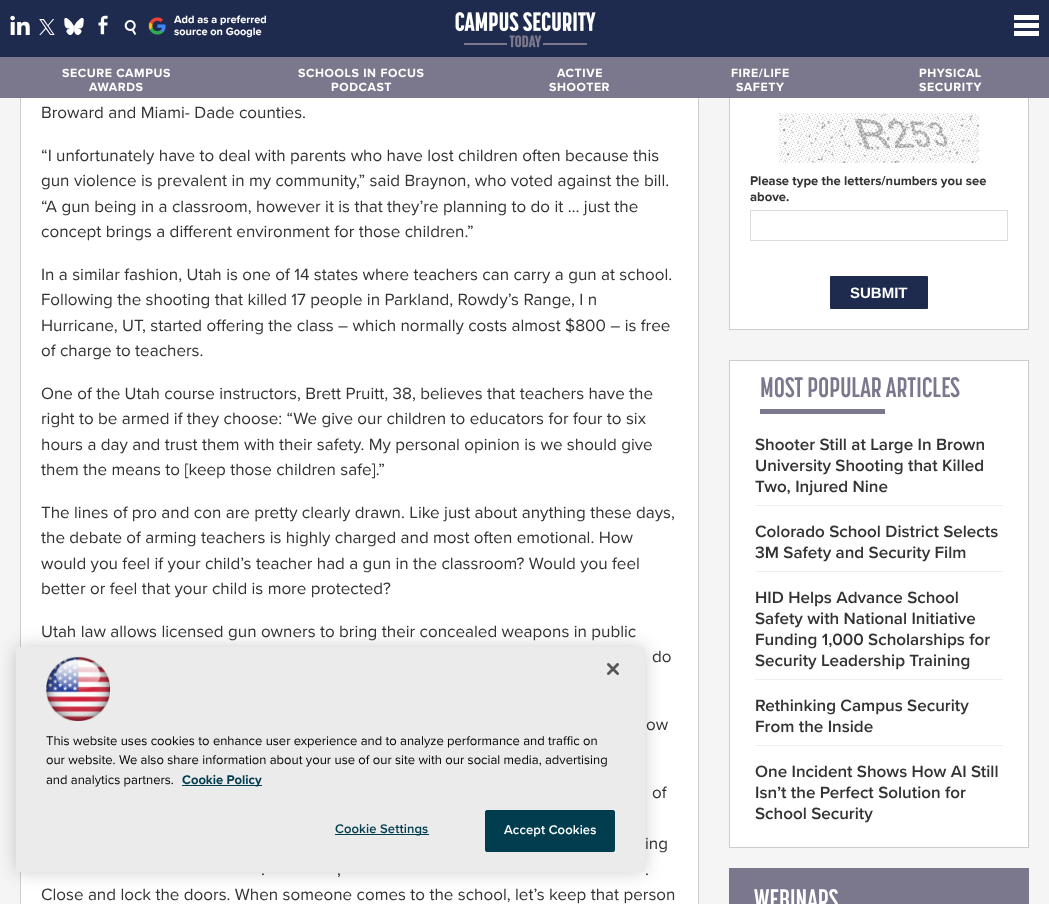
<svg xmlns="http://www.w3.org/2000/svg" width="1049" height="904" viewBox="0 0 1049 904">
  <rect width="100%" height="100%" fill="rgb(245,245,245)"/>
  <rect x="21" y="98" width="677" height="806" fill="rgb(255,255,255)"/>
  <rect x="20.5" y="-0.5" width="678" height="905" fill="none" stroke="rgb(204,204,204)"/>
  <rect x="730" y="98" width="298" height="231" fill="rgb(255,255,255)"/>
  <rect x="729.5" y="-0.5" width="299" height="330" fill="none" stroke="rgb(204,204,204)"/>
  <rect x="0" y="0" width="1049" height="57" fill="rgb(31,43,78)"/>
  <image x="10" y="15" width="20" height="20" href="pic1.png"/>
  <image x="39" y="19" width="16" height="16" href="pic2.png"/>
  <image x="64" y="18" width="20" height="17" href="pic3.png"/>
  <image x="98" y="15" width="10" height="20" href="pic4.png"/>
  <image x="124" y="20" width="13" height="15" href="pic5.png"/>
  <image x="148" y="17" width="18" height="18" href="pic6.png"/>
  <g font-family="Proxima Nova" font-size="11" font-weight="bold" fill="rgb(255,255,255)">
    <text>
      <tspan x="174" y="23">Add as a preferred</tspan>
      <tspan x="174" y="35">source on Google</tspan>
    </text>
  </g>
  <image x="455" y="12" width="141" height="36" href="pic7.png"/>
  <image x="1014" y="15" width="25" height="21" href="pic8.png"/>
  <rect x="0" y="57" width="1049" height="41" fill="rgb(123,119,141)"/>
  <g font-family="Proxima Nova" font-size="12.25" font-weight="bold" letter-spacing="0.6" fill="rgb(255,255,255)">
    <text x="62" y="77">SECURE CAMPUS</text>
    <text x="89" y="91">AWARDS</text>
    <text x="298" y="77">SCHOOLS IN FOCUS</text>
    <text x="331" y="91">PODCAST</text>
    <text x="557" y="77">ACTIVE</text>
    <text x="549" y="91">SHOOTER</text>
    <text x="731" y="77">FIRE/LIFE</text>
    <text x="736" y="91">SAFETY</text>
    <text>
      <tspan x="919" y="77">PHYSICAL</tspan>
      <tspan x="919" y="91">SECURITY</tspan>
    </text>
  </g>
  <g font-family="Proxima Nova" font-size="17" fill="rgb(51,51,51)">
    <text x="41" y="118">Broward and Miami- Dade counties.</text>
    <text>
      <tspan x="41" y="161">“I unfortunately have to deal with parents who have lost children often because this</tspan>
      <tspan x="41" y="186">gun violence is prevalent in my community,” said Braynon, who voted against the bill.</tspan>
      <tspan x="41" y="212">“A gun being in a classroom, however it is that they’re planning to do it … just the</tspan>
      <tspan x="41" y="237">concept brings a different environment for those children.”</tspan>
    </text>
    <text>
      <tspan x="41" y="280">In a similar fashion, Utah is one of 14 states where teachers can carry a gun at school.</tspan>
      <tspan x="41" y="305">Following the shooting that killed 17 people in Parkland, Rowdy’s Range, I n</tspan>
      <tspan x="41" y="331">Hurricane, UT, started offering the class – which normally costs almost $800 – is free</tspan>
      <tspan x="41" y="356">of charge to teachers.</tspan>
    </text>
    <text>
      <tspan x="41" y="399">One of the Utah course instructors, Brett Pruitt, 38, believes that teachers have the</tspan>
      <tspan x="41" y="424">right to be armed if they choose: “We give our children to educators for four to six</tspan>
      <tspan x="41" y="450">hours a day and trust them with their safety. My personal opinion is we should give</tspan>
      <tspan x="41" y="475">them the means to [keep those children safe].”</tspan>
    </text>
    <text>
      <tspan x="41" y="518">The lines of pro and con are pretty clearly drawn. Like just about anything these days,</tspan>
      <tspan x="41" y="543">the debate of arming teachers is highly charged and most often emotional. How</tspan>
      <tspan x="41" y="569">would you feel if your child’s teacher had a gun in the classroom? Would you feel</tspan>
      <tspan x="41" y="594">better or feel that your child is more protected?</tspan>
    </text>
    <text x="41" y="637">Utah law allows licensed gun owners to bring their concealed weapons in public</text>
    <text x="652" y="662">do</text>
    <text x="646" y="730">ow</text>
    <text x="652" y="798">of</text>
    <text x="645" y="849">ing</text>
    <text x="261" y="875">.</text>
    <text x="337" y="875">,</text>
    <text x="645" y="875">.</text>
    <text x="41" y="900">Close and lock the doors. When someone comes to the school, let’s keep that person</text>
  </g>
  <image x="779" y="113" width="200" height="50" href="pic9.png"/>
  <g font-family="Proxima Nova" font-size="13" font-weight="bold" fill="rgb(51,51,51)">
    <text>
      <tspan x="750" y="185">Please type the letters/numbers you see</tspan>
      <tspan x="750" y="201">above.</tspan>
    </text>
  </g>
  <rect x="750.5" y="210.5" width="257" height="30" fill="none" stroke="rgb(220,220,220)"/>
  <rect x="830" y="276" width="98" height="33" rx="1" fill="rgb(31,43,78)"/>
  <text x="850" y="298" font-family="Liberation Sans" font-size="15" font-weight="bold" fill="rgb(255,255,255)">SUBMIT</text>
  <rect x="729.5" y="360.5" width="299" height="487" fill="rgb(255,255,255)" stroke="rgb(204,204,204)"/>
  <text x="760" y="397" font-family="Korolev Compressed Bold" font-size="28" font-weight="bold" fill="rgb(123,119,141)">MOST POPULAR ARTICLES</text>
  <rect x="760" y="409" width="125" height="5" fill="rgb(123,119,141)"/>
  <rect x="755" y="505" width="248" height="1" fill="rgb(239,239,239)"/>
  <g font-family="Proxima Nova" font-size="17" font-weight="600" fill="rgb(51,51,51)">
    <text>
      <tspan x="755" y="450">Shooter Still at Large In Brown</tspan>
      <tspan x="755" y="471">University Shooting that Killed</tspan>
      <tspan x="755" y="492">Two, Injured Nine</tspan>
    </text>
  </g>
  <rect x="755" y="571" width="248" height="1" fill="rgb(239,239,239)"/>
  <g font-family="Proxima Nova" font-size="17" font-weight="600" fill="rgb(51,51,51)">
    <text>
      <tspan x="755" y="537">Colorado School District Selects</tspan>
      <tspan x="755" y="558">3M Safety and Security Film</tspan>
    </text>
  </g>
  <rect x="755" y="679" width="248" height="1" fill="rgb(239,239,239)"/>
  <g font-family="Proxima Nova" font-size="17" font-weight="600" fill="rgb(51,51,51)">
    <text>
      <tspan x="755" y="603">HID Helps Advance School</tspan>
      <tspan x="755" y="624">Safety with National Initiative</tspan>
      <tspan x="755" y="645">Funding 1,000 Scholarships for</tspan>
      <tspan x="755" y="666">Security Leadership Training</tspan>
    </text>
  </g>
  <rect x="755" y="745" width="248" height="1" fill="rgb(239,239,239)"/>
  <g font-family="Proxima Nova" font-size="17" font-weight="600" fill="rgb(51,51,51)">
    <text>
      <tspan x="755" y="711">Rethinking Campus Security</tspan>
      <tspan x="755" y="732">From the Inside</tspan>
    </text>
    <text>
      <tspan x="755" y="777">One Incident Shows How AI Still</tspan>
      <tspan x="755" y="798">Isn’t the Perfect Solution for</tspan>
      <tspan x="755" y="819">School Security</tspan>
    </text>
  </g>
  <rect x="729" y="868" width="300" height="36" fill="rgb(123,119,141)"/>
  <text x="754" y="909" font-family="Korolev Compressed Bold" font-size="28" font-weight="bold" fill="rgb(255,255,255)">WEBINARS</text>
  <rect x="16" y="647" width="629" height="225" rx="2.5" fill="rgba(0,0,0,0.2)" filter="blur(9px)"/>
  <rect x="16" y="647" width="629" height="225" rx="2.5" fill="rgb(235,235,235)"/>
  <image x="607" y="663" width="12" height="12" href="pic10.png"/>
  <image x="46" y="656" width="64" height="65" href="pic11.png"/>
  <g font-family="Proxima Nova" font-size="13" fill="rgb(0,0,0)">
    <text>
      <tspan x="46" y="745">This website uses cookies to enhance user experience and to analyze performance and traffic on</tspan>
      <tspan x="46" y="764">our website. We also share information about your use of our site with our social media, advertising</tspan>
      <tspan x="46" y="784">and analytics partners.</tspan>
    </text>
  </g>
  <rect x="182" y="785" width="80" height="1" fill="rgb(0,61,79)"/>
  <text x="182" y="784" font-family="Proxima Nova" font-size="13" font-weight="bold" fill="rgb(0,61,79)">Cookie Policy</text>
  <rect x="335" y="834" width="94" height="1" fill="rgb(0,61,79)"/>
  <text x="335" y="833" font-family="Proxima Nova" font-size="13" font-weight="600" letter-spacing="0.1" fill="rgb(0,61,79)">Cookie Settings</text>
  <rect x="485.5" y="810.5" width="129" height="41" rx="1.5" fill="rgb(0,61,79)" stroke="rgb(0,61,79)"/>
  <text x="504" y="834" font-family="Proxima Nova" font-size="13" font-weight="600" letter-spacing="0.1" fill="rgb(255,255,255)">Accept Cookies</text>
</svg>
